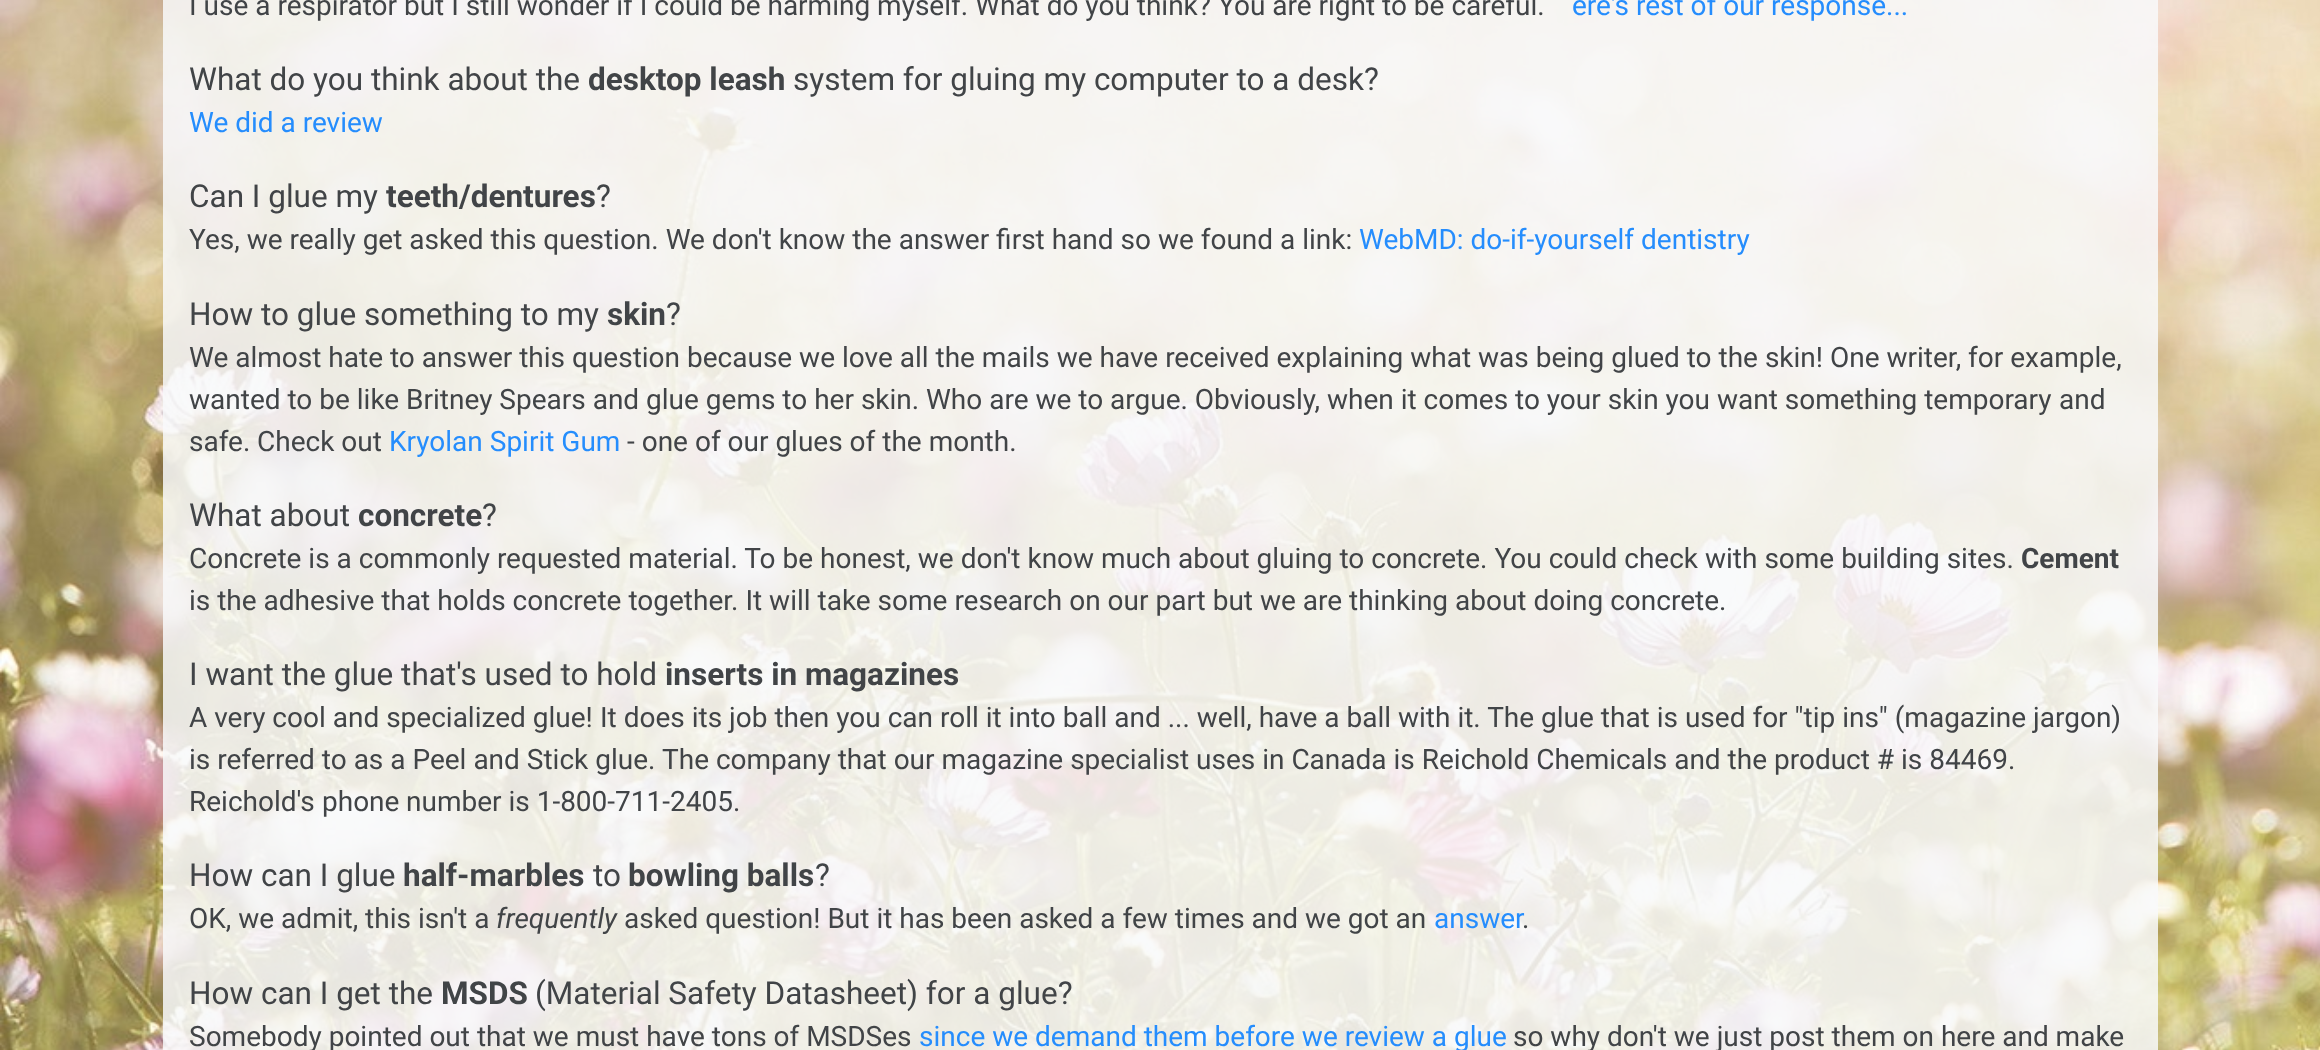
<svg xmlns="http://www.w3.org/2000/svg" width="2320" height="1050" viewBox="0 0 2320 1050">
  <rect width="100%" height="100%" fill="rgb(255,255,255)"/>
  <image x="0" y="0" width="2320" height="1050" href="pic1.png"/>
  <rect x="163" y="0" width="1995" height="1050" fill="rgba(248,249,250,0.85)"/>
  <text x="189" y="15" font-family="Roboto" font-size="28" fill="rgb(65,68,71)">I use a respirator but I still wonder if I could be harming myself. What do you think? You are right to be careful.</text>
  <text x="1572" y="15" font-family="Roboto" font-size="28" fill="rgb(37,141,253)">ere's rest of our response...</text>
  <text x="189" y="90" font-family="Roboto" font-size="31.5" fill="rgb(65,68,71)">What do you think about the</text>
  <text x="588" y="90" font-family="Roboto" font-size="31.5" font-weight="bold" fill="rgb(65,68,71)">desktop leash</text>
  <text x="793" y="90" font-family="Roboto" font-size="31.5" fill="rgb(65,68,71)">system for gluing my computer to a desk?</text>
  <text x="189" y="132" font-family="Roboto" font-size="28" fill="rgb(37,141,253)">We did a review</text>
  <text x="189" y="207" font-family="Roboto" font-size="31.5" fill="rgb(65,68,71)">Can I glue my</text>
  <text x="386" y="207" font-family="Roboto" font-size="31.5" font-weight="bold" fill="rgb(65,68,71)">teeth/dentures</text>
  <text x="596" y="207" font-family="Roboto" font-size="31.5" fill="rgb(65,68,71)">?</text>
  <text x="189" y="249" font-family="Roboto" font-size="28" fill="rgb(65,68,71)">Yes, we really get asked this question. We don't know the answer first hand so we found a link:</text>
  <text x="1359" y="249" font-family="Roboto" font-size="28" fill="rgb(37,141,253)">WebMD: do-if-yourself dentistry</text>
  <text x="189" y="325" font-family="Roboto" font-size="31.5" fill="rgb(65,68,71)">How to glue something to my</text>
  <text x="607" y="325" font-family="Roboto" font-size="31.5" font-weight="bold" fill="rgb(65,68,71)">skin</text>
  <text x="666" y="325" font-family="Roboto" font-size="31.5" fill="rgb(65,68,71)">?</text>
  <g font-family="Roboto" font-size="28" fill="rgb(65,68,71)">
    <text>
      <tspan x="189" y="367">We almost hate to answer this question because we love all the mails we have received explaining what was being glued to the skin! One writer, for example,</tspan>
      <tspan x="189" y="409">wanted to be like Britney Spears and glue gems to her skin.</tspan>
    </text>
    <text x="926" y="409">Who are we to argue. Obviously, when it comes to your skin you want something temporary</text>
    <text x="2059" y="409">and</text>
    <text x="189" y="451">safe.</text>
    <text x="257" y="451">Check out</text>
  </g>
  <text x="389" y="451" font-family="Roboto" font-size="28" fill="rgb(37,141,253)">Kryolan Spirit Gum</text>
  <text x="627" y="451" font-family="Roboto" font-size="28" fill="rgb(65,68,71)">- one of our glues of the month.</text>
  <text x="189" y="526" font-family="Roboto" font-size="31.5" fill="rgb(65,68,71)">What about</text>
  <text x="358" y="526" font-family="Roboto" font-size="31.5" font-weight="bold" fill="rgb(65,68,71)">concrete</text>
  <text x="482" y="526" font-family="Roboto" font-size="31.5" fill="rgb(65,68,71)">?</text>
  <text x="189" y="568" font-family="Roboto" font-size="28" fill="rgb(65,68,71)">Concrete is a commonly requested material. To be honest, we don't know much about gluing to concrete. You could check with some building sites.</text>
  <text x="2021" y="568" font-family="Roboto" font-size="28" font-weight="bold" fill="rgb(65,68,71)">Cement</text>
  <text x="189" y="610" font-family="Roboto" font-size="28" fill="rgb(65,68,71)">is the adhesive that holds concrete together. It will take some research on our part but we are thinking about doing concrete.</text>
  <text x="189" y="685" font-family="Roboto" font-size="31.5" fill="rgb(65,68,71)">I want the glue that's used to hold</text>
  <text x="665" y="685" font-family="Roboto" font-size="31.5" font-weight="bold" fill="rgb(65,68,71)">inserts in magazines</text>
  <g font-family="Roboto" font-size="28" fill="rgb(65,68,71)">
    <text x="189" y="727">A very cool and specialized glue!</text>
    <text x="600" y="727">It does its job then you can roll it into ball and ... well, have a ball with it. The glue that is used for "tip ins" (magazine jargon)</text>
    <text x="189" y="769">is referred to as a Peel and Stick glue.</text>
    <text x="662" y="769">The company that our magazine specialist uses in Canada is Reichold Chemicals and the product # is 84469.</text>
    <text x="189" y="811">Reichold's</text>
    <text x="322" y="811">phone</text>
    <text x="406" y="811">number is 1-800-711-2405.</text>
  </g>
  <text x="189" y="886" font-family="Roboto" font-size="31.5" fill="rgb(65,68,71)">How can I glue</text>
  <text x="403" y="886" font-family="Roboto" font-size="31.5" font-weight="bold" fill="rgb(65,68,71)">half-marbles</text>
  <text x="593" y="886" font-family="Roboto" font-size="31.5" fill="rgb(65,68,71)">to</text>
  <text x="628" y="886" font-family="Roboto" font-size="31.5" font-weight="bold" fill="rgb(65,68,71)">bowling balls</text>
  <text x="815" y="886" font-family="Roboto" font-size="31.5" fill="rgb(65,68,71)">?</text>
  <text x="189" y="928" font-family="Roboto" font-size="28" fill="rgb(65,68,71)">OK, we admit, this isn't a</text>
  <text x="496" y="928" font-family="Roboto" font-size="28" font-style="italic" fill="rgb(65,68,71)">frequently</text>
  <text x="624" y="928" font-family="Roboto" font-size="28" fill="rgb(65,68,71)">asked question! But it has been asked a few times and we got an</text>
  <text x="1434" y="928" font-family="Roboto" font-size="28" fill="rgb(37,141,253)">answer</text>
  <text x="1522" y="928" font-family="Roboto" font-size="28" fill="rgb(65,68,71)">.</text>
  <text x="189" y="1004" font-family="Roboto" font-size="31.5" fill="rgb(65,68,71)">How can I get the</text>
  <text x="441" y="1004" font-family="Roboto" font-size="31.5" font-weight="bold" fill="rgb(65,68,71)">MSDS</text>
  <text x="535" y="1004" font-family="Roboto" font-size="31.5" fill="rgb(65,68,71)">(Material Safety Datasheet) for a glue?</text>
  <text x="189" y="1046" font-family="Roboto" font-size="28" fill="rgb(65,68,71)">Somebody pointed out that we must have tons of MSDSes</text>
  <text x="919" y="1046" font-family="Roboto" font-size="28" fill="rgb(37,141,253)">since we demand them before we review a glue</text>
  <text x="1513" y="1046" font-family="Roboto" font-size="28" fill="rgb(65,68,71)">so why don't we just post them on here and make</text>
</svg>
